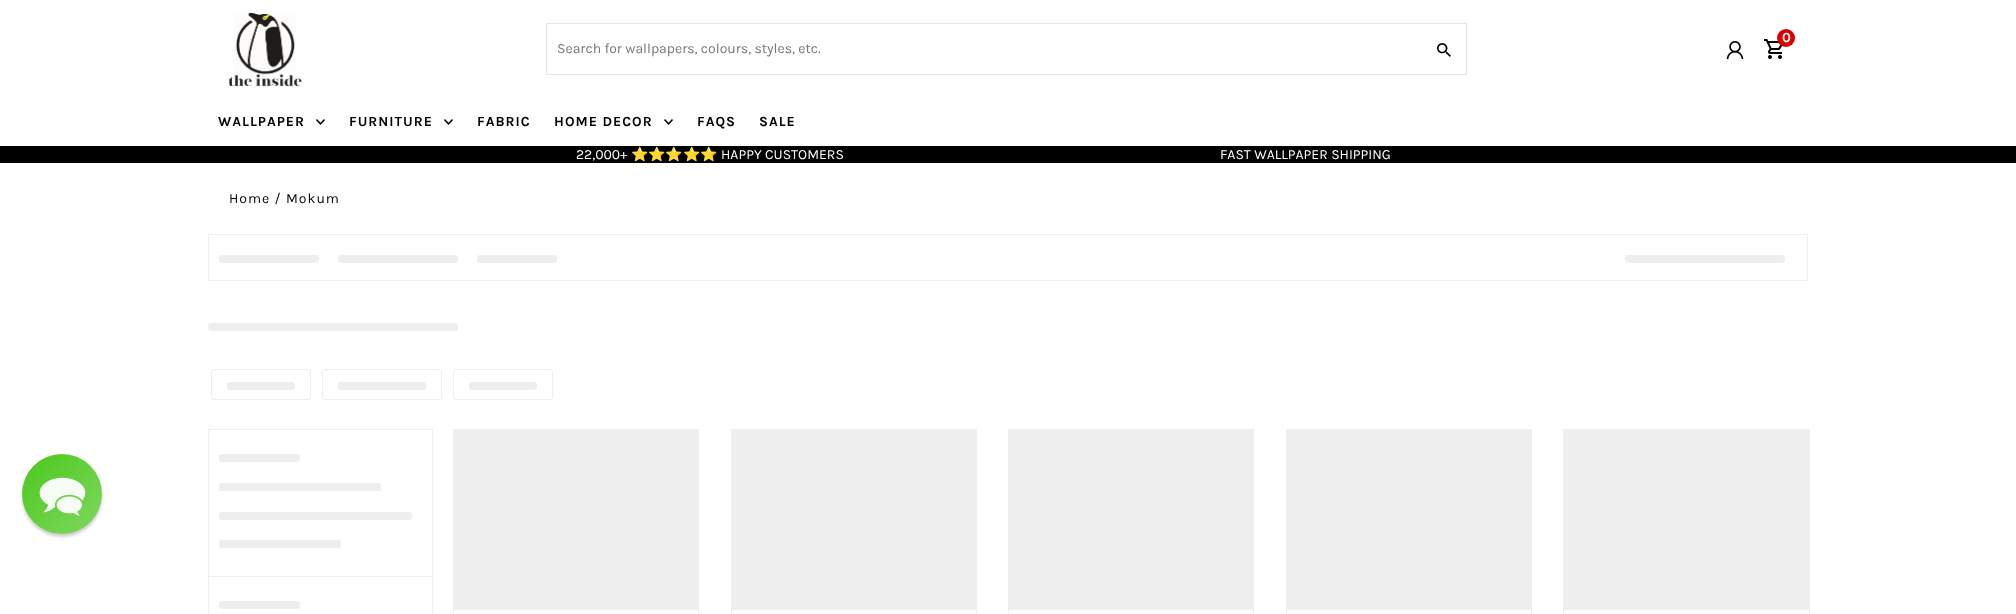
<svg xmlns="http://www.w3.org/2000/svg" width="2016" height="614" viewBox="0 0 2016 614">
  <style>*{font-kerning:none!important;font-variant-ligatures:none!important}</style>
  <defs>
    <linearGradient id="g1" gradientUnits="userSpaceOnUse" x1="22" y1="454" x2="102" y2="534"><stop offset="0" stop-color="rgb(74,200,28)"/><stop offset="1" stop-color="rgb(128,216,96)"/></linearGradient>
  </defs>
  <rect width="100%" height="100%" fill="rgb(255,255,255)"/>
  <image x="228" y="12" width="75" height="75" href="pic1.png"/>
  <image x="1764" y="39" width="18" height="20" href="pic2.png"/>
  <circle cx="1786" cy="38" r="9" fill="rgb(220,0,0)"/>
  <text x="1782" y="42" font-family="Karla" font-size="14" font-weight="bold" letter-spacing="1" fill="rgb(255,255,255)">0</text>
  <image x="1726" y="41" width="18" height="19" href="pic3.png"/>
  <rect x="546.5" y="23.5" width="920" height="51" fill="none" stroke="rgb(229,229,229)"/>
  <text x="557" y="53" font-family="Karla" font-size="14" fill="rgb(117,117,117)">Search for wallpapers, colours, styles, etc.</text>
  <image x="1437" y="43" width="14" height="14" href="pic4.png"/>
  <text x="218" y="126" font-family="Karla" font-size="14" font-weight="bold" letter-spacing="1" fill="rgb(0,0,0)">WALLPAPER</text>
  <image x="316" y="119" width="9" height="6" href="pic5.png"/>
  <text x="349" y="126" font-family="Karla" font-size="14" font-weight="bold" letter-spacing="1" fill="rgb(0,0,0)">FURNITURE</text>
  <image x="444" y="119" width="9" height="6" href="pic5.png"/>
  <g font-family="Karla" font-size="14" font-weight="bold" letter-spacing="1" fill="rgb(0,0,0)">
    <text x="477" y="126">FABRIC</text>
    <text x="554" y="126">HOME DECOR</text>
  </g>
  <image x="664" y="119" width="9" height="6" href="pic5.png"/>
  <g font-family="Karla" font-size="14" font-weight="bold" letter-spacing="1" fill="rgb(0,0,0)">
    <text x="697" y="126">FAQS</text>
    <text x="759" y="126">SALE</text>
  </g>
  <rect x="0" y="146" width="2016" height="17" fill="rgb(0,0,0)"/>
  <text x="576" y="159" font-family="Karla" font-size="14" fill="rgb(255,255,255)">22,000+</text>
  <text x="631" y="159" font-family="Noto Color Emoji" font-size="14" fill="rgb(255,255,255)">⭐⭐⭐⭐⭐</text>
  <g font-family="Karla" font-size="14" fill="rgb(255,255,255)">
    <text x="721" y="159">HAPPY CUSTOMERS</text>
    <text x="1220" y="159">FAST WALLPAPER SHIPPING</text>
  </g>
  <text x="229" y="203" font-family="Karla" font-size="14" letter-spacing="1" fill="rgb(0,0,0)">Home / Mokum</text>
  <rect x="208.5" y="234.5" width="1599" height="46" fill="none" stroke="rgb(238,238,238)"/>
  <rect x="219" y="255" width="100" height="8" rx="3" fill="rgb(238,238,238)"/>
  <rect x="338" y="255" width="120" height="8" rx="3" fill="rgb(238,238,238)"/>
  <rect x="477" y="255" width="80" height="8" rx="3" fill="rgb(238,238,238)"/>
  <rect x="1625" y="255" width="160" height="8" rx="3" fill="rgb(238,238,238)"/>
  <rect x="208" y="323" width="250" height="8" rx="3" fill="rgb(238,238,238)"/>
  <rect x="211.5" y="369.5" width="99" height="30" rx="2.5" fill="none" stroke="rgb(238,238,238)"/>
  <rect x="227" y="382" width="68" height="8" rx="3" fill="rgb(238,238,238)"/>
  <rect x="322.5" y="369.5" width="119" height="30" rx="2.5" fill="none" stroke="rgb(238,238,238)"/>
  <rect x="338" y="382" width="88" height="8" rx="3" fill="rgb(238,238,238)"/>
  <rect x="453.5" y="369.5" width="99" height="30" rx="2.5" fill="none" stroke="rgb(238,238,238)"/>
  <rect x="469" y="382" width="68" height="8" rx="3" fill="rgb(238,238,238)"/>
  <rect x="208" y="429" width="225" height="1" fill="rgb(238,238,238)"/>
  <rect x="432" y="429" width="1" height="147" fill="rgb(238,238,238)"/>
  <rect x="208" y="429" width="1" height="147" fill="rgb(238,238,238)"/>
  <rect x="219" y="454" width="81" height="8" rx="3" fill="rgb(238,238,238)"/>
  <rect x="219" y="483" width="162" height="8" rx="3" fill="rgb(238,238,238)"/>
  <rect x="219" y="512" width="193" height="8" rx="3" fill="rgb(238,238,238)"/>
  <rect x="219" y="540" width="122" height="8" rx="3" fill="rgb(238,238,238)"/>
  <rect x="208" y="576" width="225" height="1" fill="rgb(238,238,238)"/>
  <rect x="432" y="576" width="1" height="38" fill="rgb(238,238,238)"/>
  <rect x="208" y="576" width="1" height="38" fill="rgb(238,238,238)"/>
  <rect x="219" y="601" width="81" height="8" rx="3" fill="rgb(238,238,238)"/>
  <rect x="453.5" y="429.5" width="245" height="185" fill="none" stroke="rgb(238,238,238)"/>
  <rect x="454" y="430" width="244" height="180" fill="rgb(238,238,238)"/>
  <rect x="731.5" y="429.5" width="245" height="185" fill="none" stroke="rgb(238,238,238)"/>
  <rect x="732" y="430" width="244" height="180" fill="rgb(238,238,238)"/>
  <rect x="1008.5" y="429.5" width="245" height="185" fill="none" stroke="rgb(238,238,238)"/>
  <rect x="1009" y="430" width="244" height="180" fill="rgb(238,238,238)"/>
  <rect x="1286.5" y="429.5" width="245" height="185" fill="none" stroke="rgb(238,238,238)"/>
  <rect x="1287" y="430" width="244" height="180" fill="rgb(238,238,238)"/>
  <rect x="1563.5" y="429.5" width="246" height="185" fill="none" stroke="rgb(238,238,238)"/>
  <rect x="1564" y="430" width="245" height="180" fill="rgb(238,238,238)"/>
  <rect x="22" y="457" width="80" height="80" rx="40" fill="rgba(13,13,13,0.2)" filter="blur(1.5px)"/>
  <circle cx="62" cy="494" r="40" fill="url(#g1)"/>
  <image x="39" y="477" width="47" height="39" href="pic6.png"/>
</svg>
